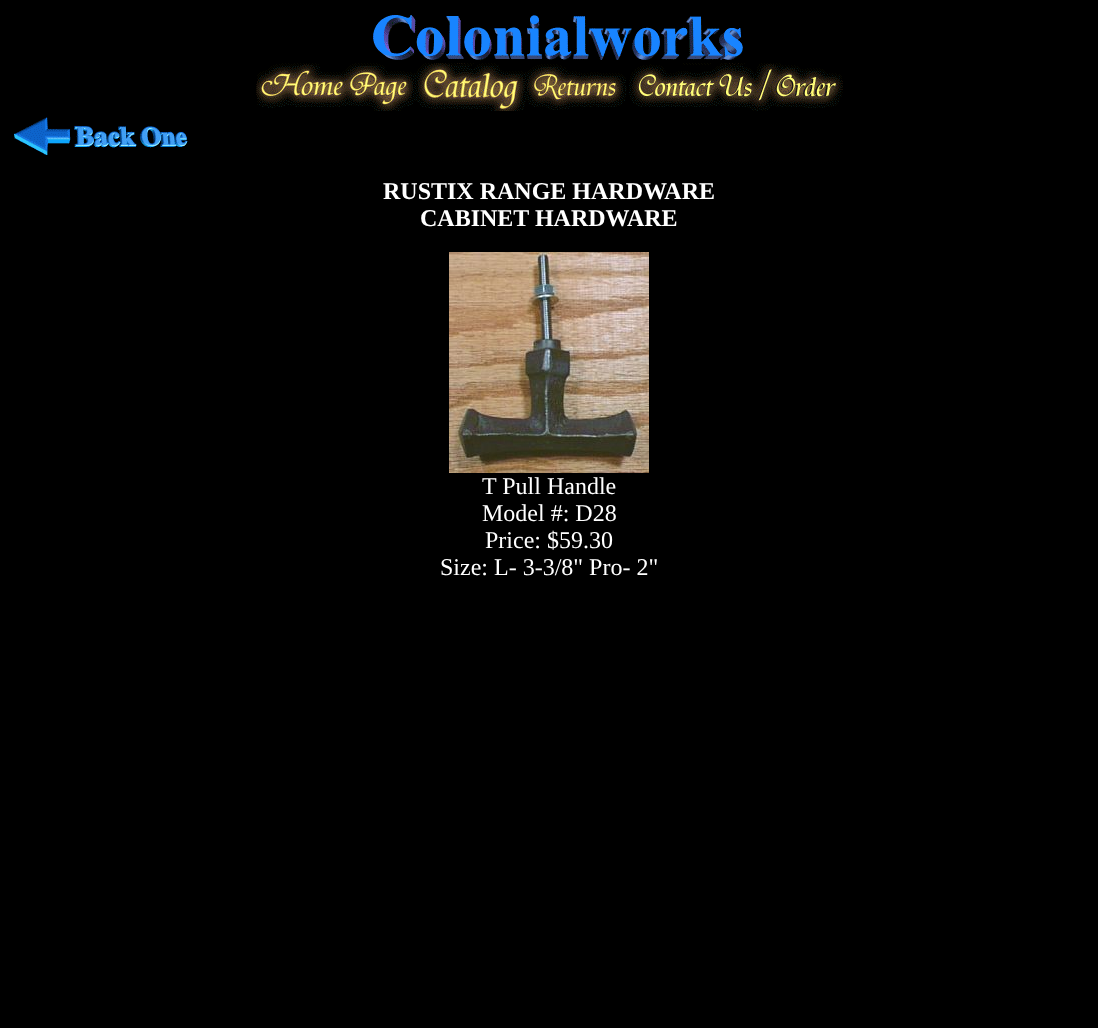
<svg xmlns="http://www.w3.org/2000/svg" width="1098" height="1028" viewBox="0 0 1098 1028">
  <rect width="100%" height="100%" fill="rgb(0,0,0)"/>
  <image x="256" y="15" width="587" height="96" href="pic1.png"/>
  <image x="14" y="117" width="174" height="38" href="pic2.png"/>
  <g font-family="Liberation Serif" font-size="24" font-weight="bold" fill="rgb(255,255,255)">
    <text x="383" y="199">RUSTIX RANGE HARDWARE</text>
    <text x="420" y="226">CABINET HARDWARE</text>
  </g>
  <image x="449" y="252" width="200" height="221" href="pic3.png"/>
  <g font-family="Liberation Serif" font-size="24" fill="rgb(255,255,255)">
    <text>
      <tspan x="482" y="494">T Pull Handle</tspan>
      <tspan x="482" y="521">Model #: D28</tspan>
    </text>
    <text x="485" y="548">Price: $59.30</text>
    <text x="440" y="575">Size: L- 3-3/8" Pro- 2"</text>
  </g>
</svg>
